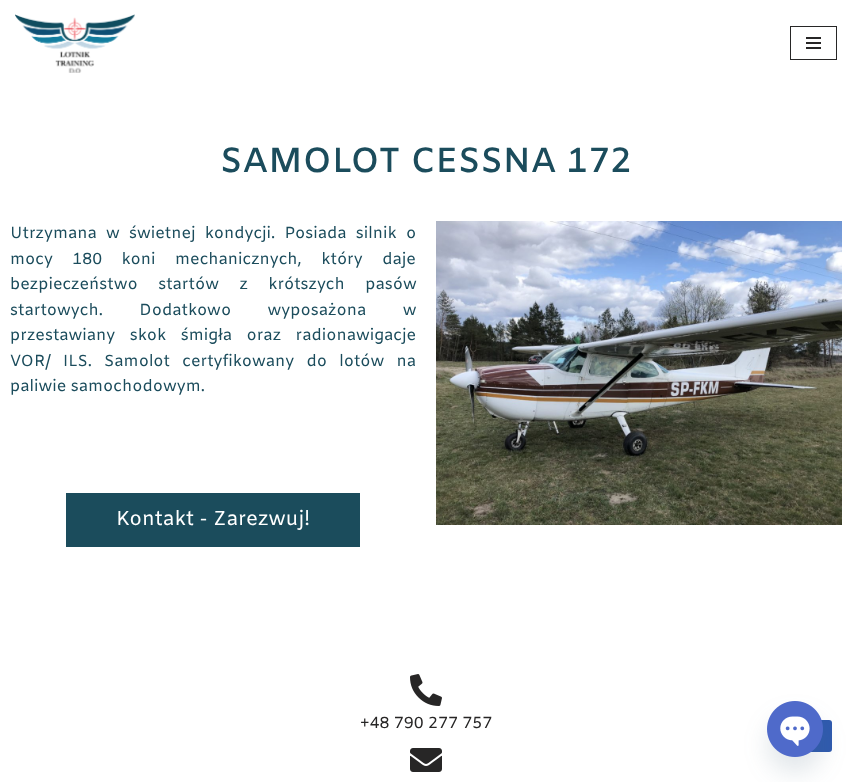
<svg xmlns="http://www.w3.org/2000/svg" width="852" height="782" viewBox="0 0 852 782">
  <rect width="100%" height="100%" fill="rgb(255,255,255)"/>
  <image x="15" y="14" width="120" height="59" href="pic1.png"/>
  <rect x="790.5" y="26.5" width="46" height="33" fill="none" stroke="rgb(39,38,38)"/>
  <rect x="806" y="37" width="15" height="2" fill="rgb(39,38,38)"/>
  <rect x="806" y="42" width="15" height="2" fill="rgb(39,38,38)"/>
  <rect x="806" y="47" width="15" height="2" fill="rgb(39,38,38)"/>
  <text x="220" y="172" font-family="Amiko" font-size="35" font-weight="600" fill="rgb(27,76,92)">SAMOLOT CESSNA 172</text>
  <g font-family="Amiko" font-size="16" fill="rgb(27,76,92)">
    <text x="10" y="238">Utrzymana</text>
    <text x="106" y="238" word-spacing="4.75">w świetnej kondycji. Posiada silnik o</text>
    <text>
      <tspan x="10" y="264" word-spacing="15">mocy 180 koni mechanicznych, który daje</tspan>
      <tspan x="10" y="289" word-spacing="16">bezpieczeństwo startów z krótszych pasów</tspan>
      <tspan x="10" y="315" word-spacing="32">startowych. Dodatkowo wyposażona w</tspan>
      <tspan x="10" y="340" word-spacing="10">przestawiany skok śmigła oraz radionawigacje</tspan>
      <tspan x="10" y="366" word-spacing="7.75">VOR/ ILS. Samolot certyfikowany do lotów na</tspan>
      <tspan x="10" y="391">paliwie samochodowym.</tspan>
    </text>
  </g>
  <rect x="66" y="493" width="294" height="54" fill="rgb(27,76,92)"/>
  <text x="116" y="525" font-family="Amiko" font-size="20" fill="rgb(255,255,255)">Kontakt - Zarezwuj!</text>
  <image x="436" y="221" width="406" height="304" href="pic2.png"/>
  <image x="410" y="674" width="32" height="32" href="pic3.png"/>
  <text x="360" y="728" font-family="Amiko" font-size="16" fill="rgb(39,38,38)">+48 790 277 757</text>
  <image x="410" y="748" width="32" height="24" href="pic4.png"/>
  <rect x="796" y="720" width="36" height="32" rx="3" fill="rgb(47,90,174)"/>
  <rect x="767" y="717" width="56" height="56" rx="28" fill="rgba(73,104,126,0.16)" filter="blur(12px)"/>
  <image x="767" y="701" width="56" height="56" href="pic5.png"/>
</svg>
